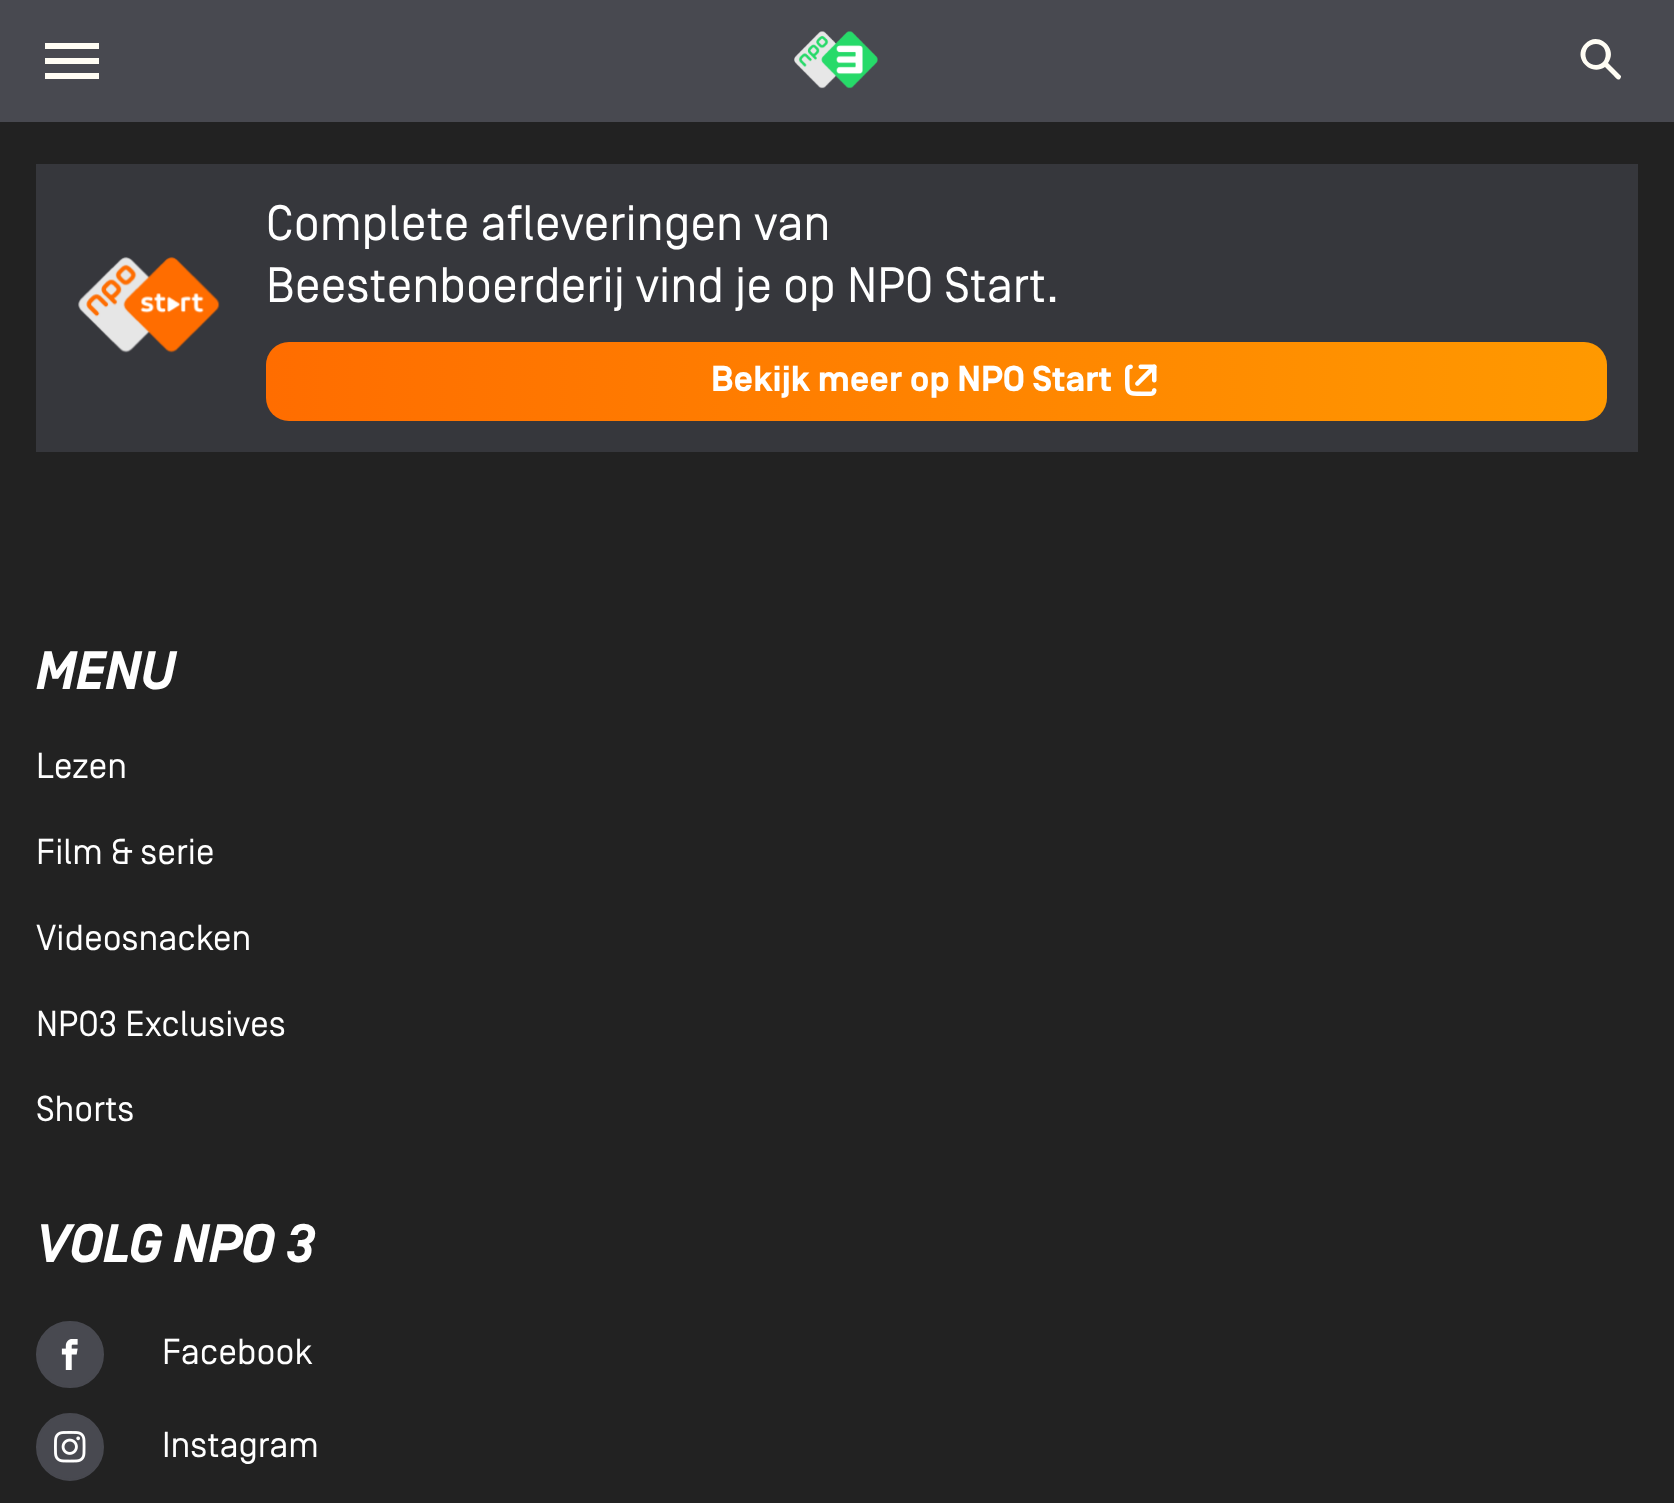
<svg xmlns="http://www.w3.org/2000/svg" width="1674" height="1503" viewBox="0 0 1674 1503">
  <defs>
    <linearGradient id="g1" gradientUnits="userSpaceOnUse" x1="266" y1="381" x2="1607" y2="381"><stop offset="0" stop-color="rgb(255,109,0)"/><stop offset="1" stop-color="rgb(255,153,0)"/></linearGradient>
  </defs>
  <rect width="100%" height="100%" fill="rgb(34,34,34)"/>
  <rect x="0" y="0" width="1674" height="122" fill="rgb(72,73,80)"/>
  <path d="M45 49V43H99V49ZM45 64H99V58H45ZM45 79H99V73H45Z" fill="rgb(255,253,244)" fill-rule="evenodd"/>
  <image x="794" y="31" width="84" height="58" href="pic1.png"/>
  <path d="M1621 76V77C1619 83 1615 77 1613 75L1605 67C1590 77 1572 57 1585 44C1598 30 1619 49 1608 63ZM1596 44C1582 44 1582 65 1596 65C1609 65 1609 44 1596 44Z" fill="rgb(255,253,244)"/>
  <rect x="36" y="164" width="1602" height="288" fill="rgb(54,55,60)"/>
  <image x="78" y="256" width="142" height="97" href="pic2.png"/>
  <g font-family="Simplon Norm" font-size="49.5" fill="rgb(255,255,255)">
    <text>
      <tspan x="266" y="240">Complete afleveringen van</tspan>
      <tspan x="266" y="302">Beestenboerderij vind je op NPO Start.</tspan>
    </text>
  </g>
  <rect x="266" y="342" width="1341" height="79" rx="23" fill="url(#g1)"/>
  <text x="711" y="391" font-family="Simplon Norm" font-size="36" font-weight="bold" fill="rgb(255,255,255)">Bekijk meer op NPO Start</text>
  <image x="1125" y="364" width="32" height="32" href="pic3.png"/>
  <text x="36" y="689" font-family="Simplon Norm" font-size="54" font-weight="bold" font-style="italic" fill="rgb(255,255,255)">MENU</text>
  <g font-family="Simplon Norm" font-size="36" fill="rgb(255,255,255)">
    <text x="36" y="778">Lezen</text>
    <text x="36" y="864">Film &amp; serie</text>
    <text x="36" y="950">Videosnacken</text>
    <text x="36" y="1036">NPO3 Exclusives</text>
    <text x="36" y="1121">Shorts</text>
  </g>
  <text x="36" y="1262" font-family="Simplon Norm" font-size="54" font-weight="bold" font-style="italic" fill="rgb(255,255,255)">VOLG NPO 3</text>
  <rect x="37" y="1322" width="66" height="65" rx="32.5" fill="rgb(72,73,80)" stroke="rgb(72,73,80)" stroke-width="2"/>
  <image x="61" y="1339" width="17" height="31" href="pic4.png"/>
  <text x="162" y="1364" font-family="Simplon Norm" font-size="36" fill="rgb(255,255,255)">Facebook</text>
  <circle cx="70" cy="1447" r="33" fill="rgb(72,73,80)" stroke="rgb(72,73,80)" stroke-width="2"/>
  <image x="54" y="1431" width="32" height="32" href="pic5.png"/>
  <text x="162" y="1457" font-family="Simplon Norm" font-size="36" fill="rgb(255,255,255)">Instagram</text>
</svg>
